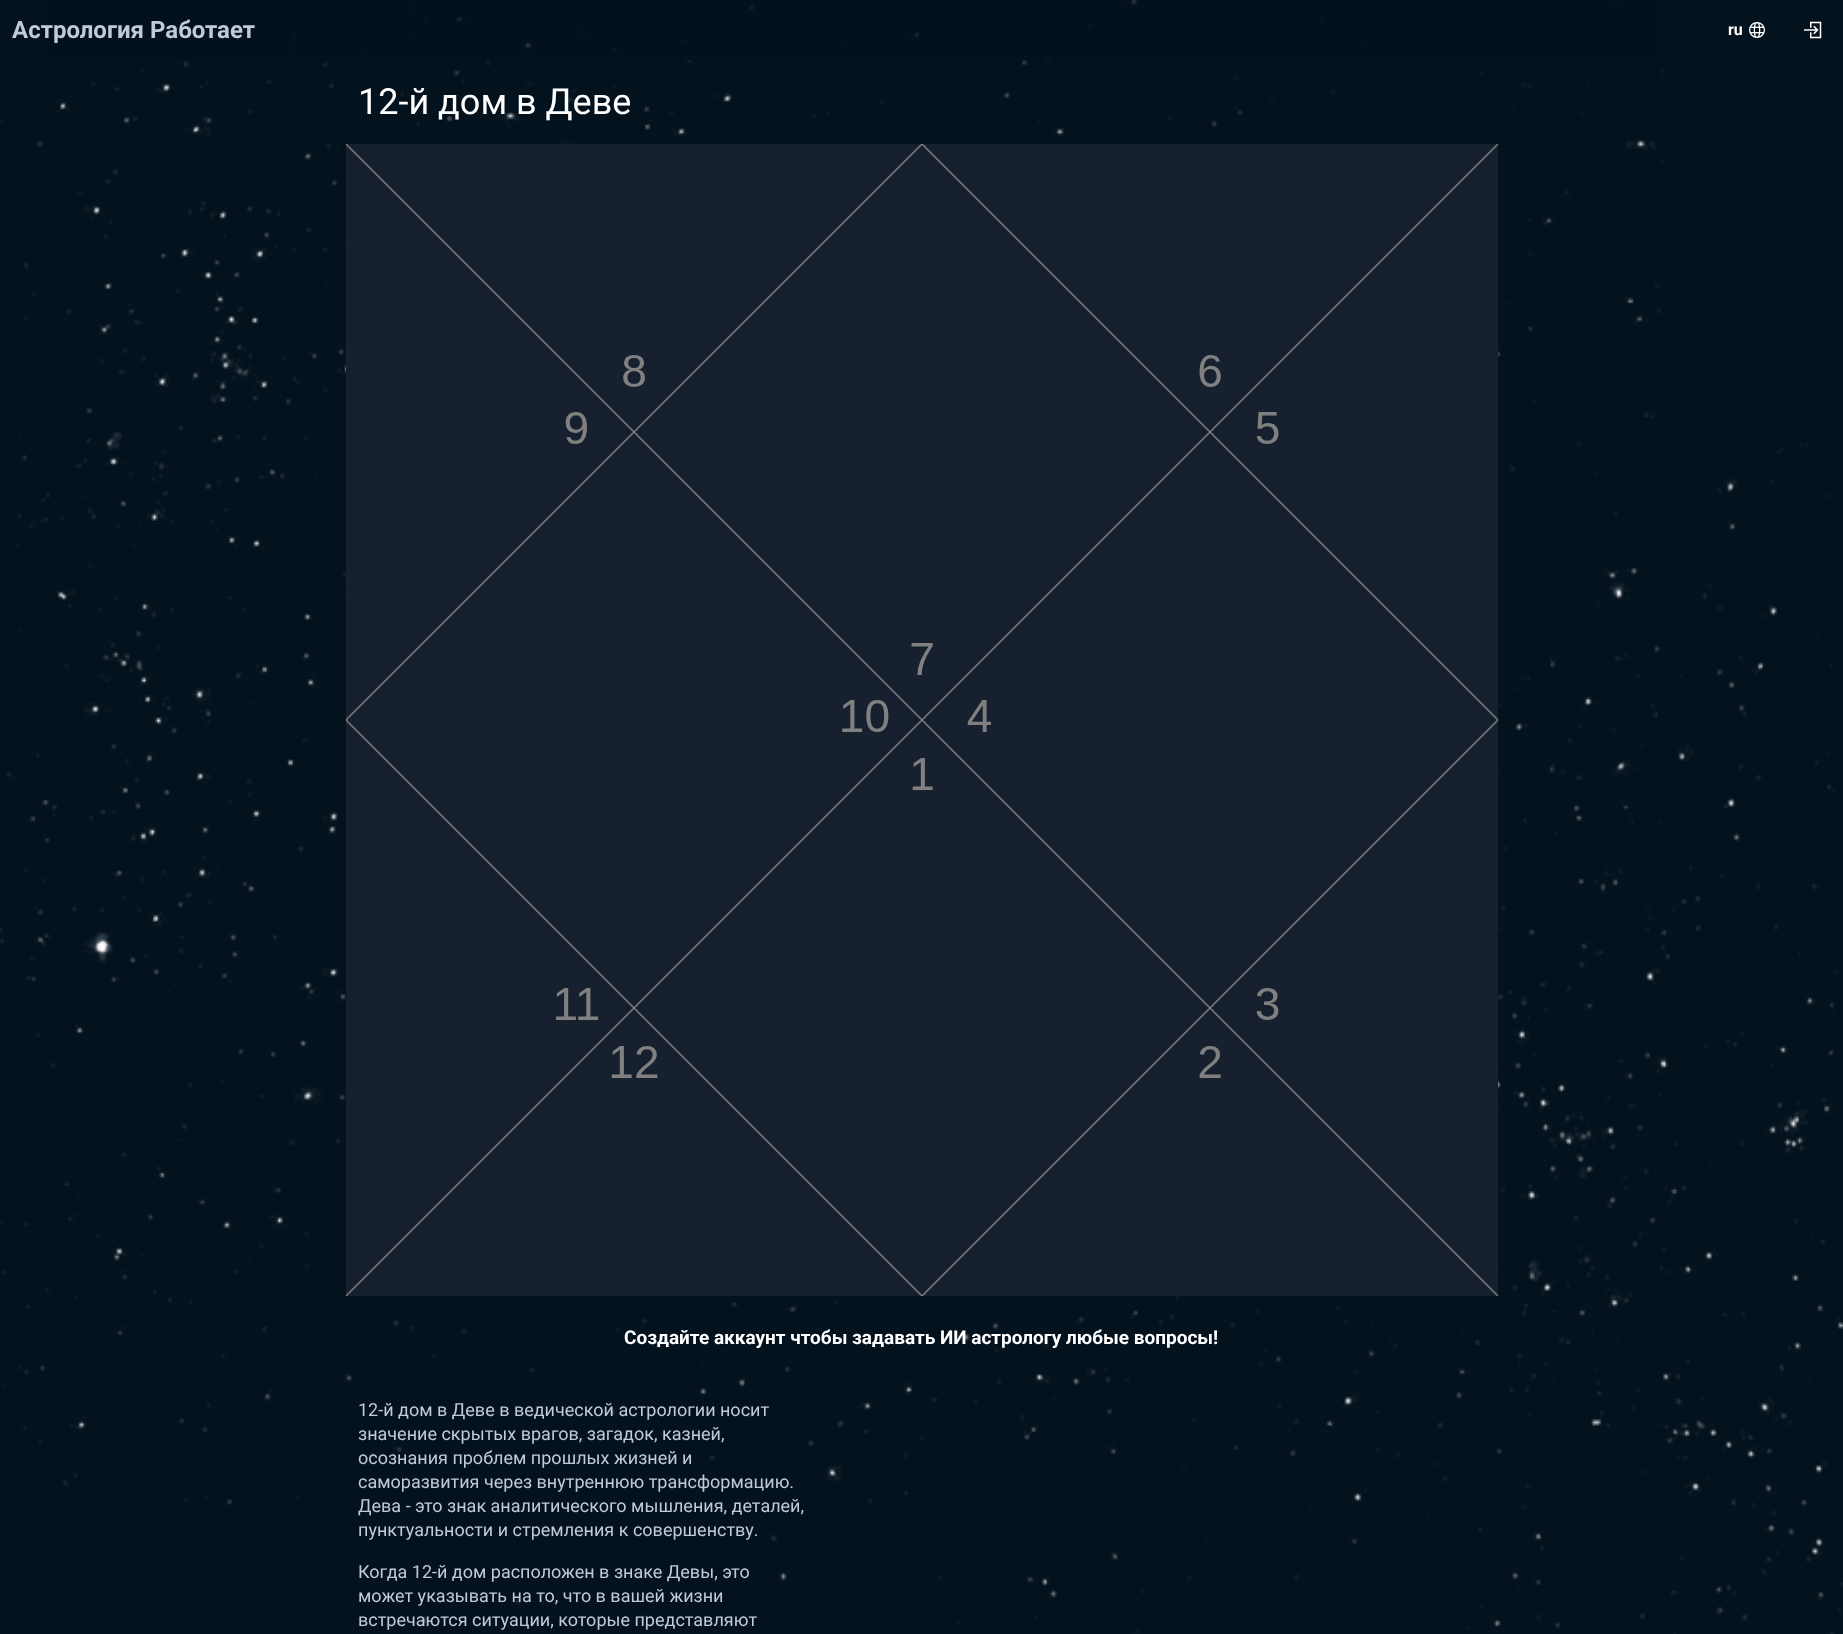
<svg xmlns="http://www.w3.org/2000/svg" width="1843" height="1634" viewBox="0 0 1843 1634">
  <rect width="100%" height="100%" fill="rgb(4,18,30)"/>
  <image x="0" y="0" width="1843" height="1634" href="pic1.png"/>
  <rect x="45" y="0" width="1614" height="60" fill="rgba(4,18,30,0.8)"/>
  <text x="12" y="38" font-family="Roboto" font-size="24" font-weight="bold" fill="rgb(192,202,220)">Астрология Работает</text>
  <text x="1728" y="35" font-family="Roboto" font-size="16" font-weight="bold" fill="rgb(255,255,255)">ru</text>
  <image x="1749" y="22" width="16" height="16" href="pic2.png"/>
  <image x="1804" y="21" width="18" height="18" href="pic3.png"/>
  <text x="358" y="114" font-family="Roboto" font-size="36" fill="rgb(255,255,255)">12-й дом в Деве</text>
  <image x="346" y="144" width="1152" height="1152" href="pic4.png"/>
  <text x="624" y="1344" font-family="Roboto" font-size="19" font-weight="bold" fill="rgb(255,255,255)">Создайте аккаунт чтобы задавать ИИ астрологу любые вопросы!</text>
  <g font-family="Roboto" font-size="18" fill="rgb(192,202,220)">
    <text>
      <tspan x="358" y="1416">12-й дом в Деве в ведической астрологии носит</tspan>
      <tspan x="358" y="1440">значение скрытых врагов, загадок, казней,</tspan>
      <tspan x="358" y="1464">осознания проблем прошлых жизней и</tspan>
      <tspan x="358" y="1488">саморазвития через внутреннюю трансформацию.</tspan>
      <tspan x="358" y="1512">Дева - это знак аналитического мышления, деталей,</tspan>
      <tspan x="358" y="1536">пунктуальности и стремления к совершенству.</tspan>
    </text>
    <text>
      <tspan x="358" y="1578">Когда 12-й дом расположен в знаке Девы, это</tspan>
      <tspan x="358" y="1602">может указывать на то, что в вашей жизни</tspan>
      <tspan x="358" y="1626">встречаются ситуации, которые представляют</tspan>
    </text>
  </g>
</svg>
